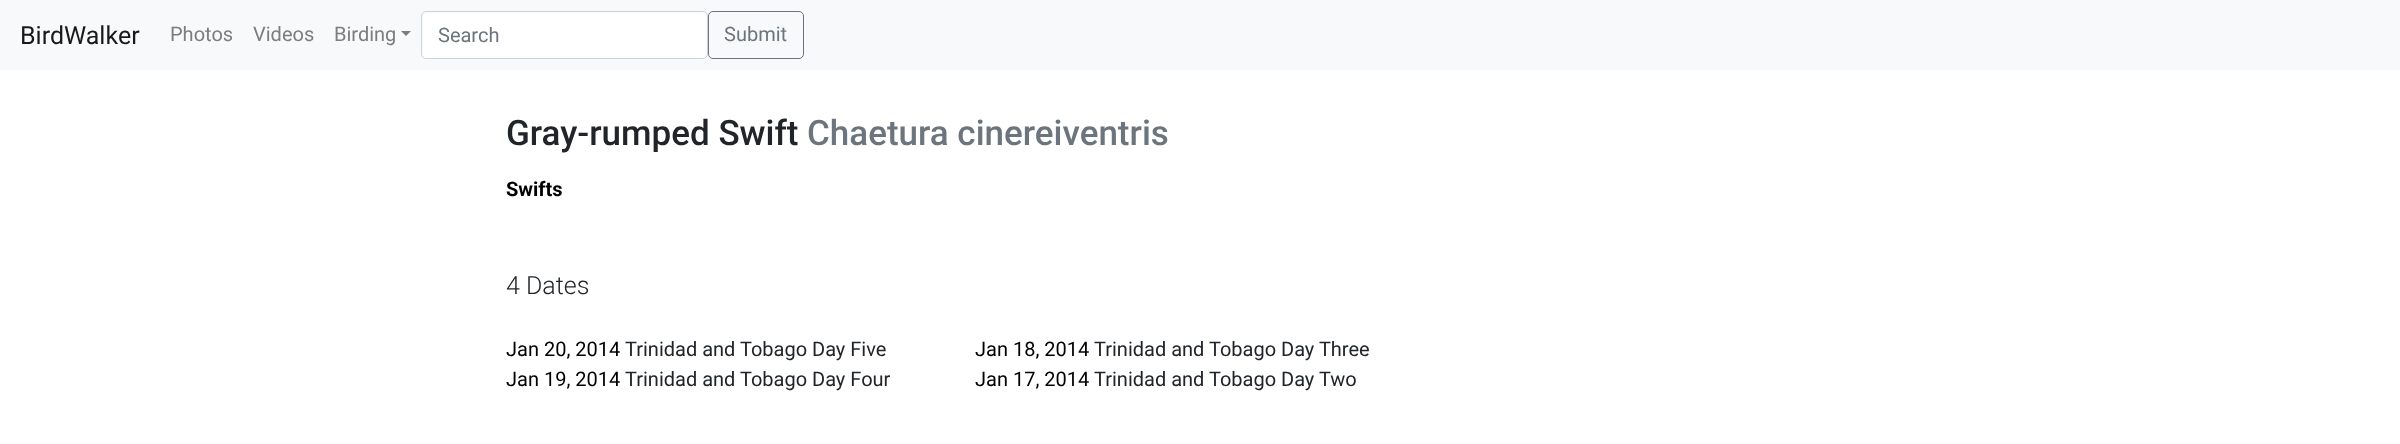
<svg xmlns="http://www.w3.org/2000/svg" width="2400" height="444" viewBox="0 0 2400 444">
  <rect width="100%" height="100%" fill="rgb(255,255,255)"/>
  <rect x="0" y="0" width="2400" height="70" fill="rgb(248,249,250)"/>
  <text x="20" y="44" font-family="Roboto" font-size="25" fill="rgb(25,25,25)">BirdWalker</text>
  <g font-family="Roboto" font-size="20" fill="rgb(124,125,125)">
    <text x="170" y="41">Photos</text>
    <text x="253" y="41">Videos</text>
    <text x="334" y="41">Birding</text>
  </g>
  <path d="M401 31H411L406 36Z" fill="rgb(124,125,125)"/>
  <rect x="423" y="13" width="283" height="45" rx="4" fill="rgb(255,255,255)"/>
  <rect x="421.5" y="11.5" width="286" height="47" rx="4.5" fill="none" stroke="rgb(206,212,218)"/>
  <text x="438" y="42" font-family="Roboto" font-size="20" fill="rgb(108,117,125)">Search</text>
  <rect x="708.5" y="11.5" width="95" height="47" rx="4.5" fill="none" stroke="rgb(108,117,125)"/>
  <text x="724" y="41" font-family="Roboto" font-size="20" fill="rgb(108,117,125)">Submit</text>
  <text x="506" y="145" font-family="Roboto" font-size="35" font-weight="500" fill="rgb(33,37,41)">Gray-rumped Swift</text>
  <text x="807" y="145" font-family="Roboto" font-size="35" font-weight="500" fill="rgb(108,117,125)">Chaetura cinereiventris</text>
  <text x="506" y="196" font-family="Roboto" font-size="20" font-weight="bold" fill="rgb(0,0,0)">Swifts</text>
  <text x="506" y="294" font-family="Roboto" font-size="25" font-weight="300" fill="rgb(33,37,41)">4 Dates</text>
  <text x="506" y="356" font-family="Roboto" font-size="20" fill="rgb(0,0,0)">Jan 20, 2014</text>
  <text x="625" y="356" font-family="Roboto" font-size="20" fill="rgb(33,37,41)">Trinidad and Tobago Day Five</text>
  <text x="975" y="356" font-family="Roboto" font-size="20" fill="rgb(0,0,0)">Jan 18, 2014</text>
  <text x="1094" y="356" font-family="Roboto" font-size="20" fill="rgb(33,37,41)">Trinidad and Tobago Day Three</text>
  <text x="506" y="386" font-family="Roboto" font-size="20" fill="rgb(0,0,0)">Jan 19, 2014</text>
  <text x="625" y="386" font-family="Roboto" font-size="20" fill="rgb(33,37,41)">Trinidad and Tobago Day Four</text>
  <text x="975" y="386" font-family="Roboto" font-size="20" fill="rgb(0,0,0)">Jan 17, 2014</text>
  <text x="1094" y="386" font-family="Roboto" font-size="20" fill="rgb(33,37,41)">Trinidad and Tobago Day Two</text>
</svg>
